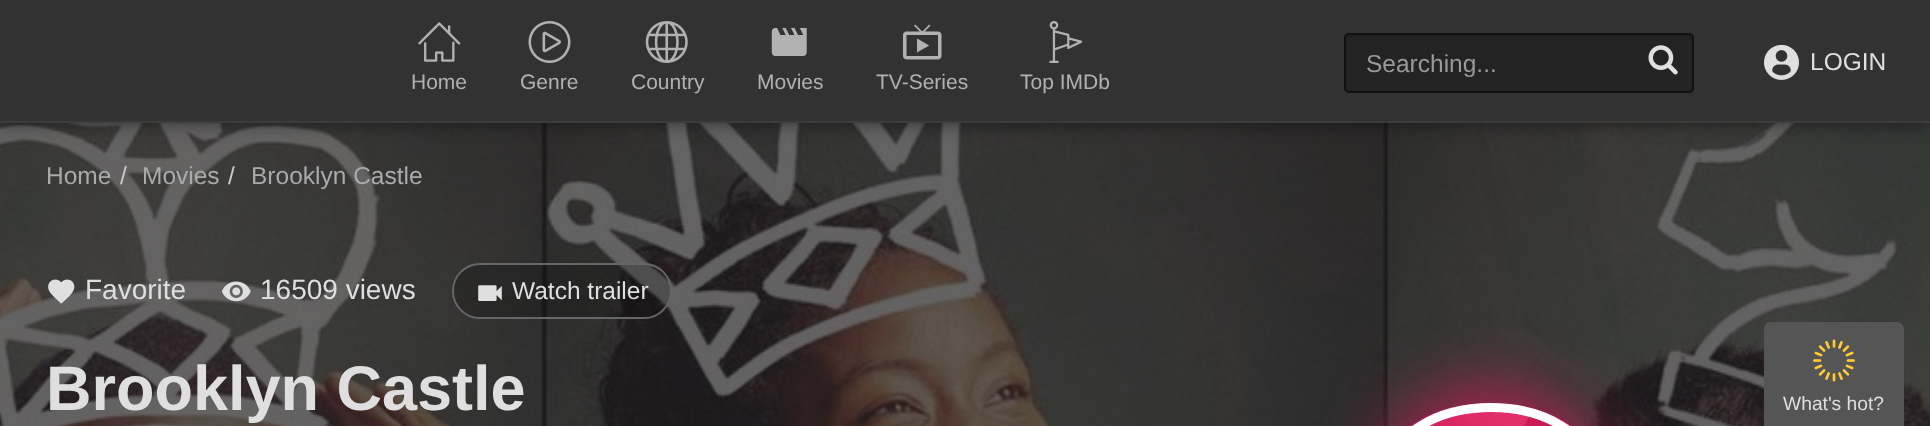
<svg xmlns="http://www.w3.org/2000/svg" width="1930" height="426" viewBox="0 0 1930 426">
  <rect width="100%" height="100%" fill="rgb(255,255,255)"/>
  <image x="0" y="123" width="1930" height="303" href="pic9.png"/>
  <rect x="0" y="0" width="1930" height="123" fill="rgba(0,0,0,0.5)" filter="blur(9px)"/>
  <rect x="0" y="0" width="1930" height="121" fill="rgb(50,50,50)"/>
  <rect x="1344" y="33" width="350" height="60" rx="5" fill="rgb(35,35,35)"/>
  <path d="M1349 37H1689C1691 37 1692 38 1692 40V39C1692 37 1690 35 1688 35H1350C1348 35 1346 37 1346 39V40C1346 38 1347 37 1349 37Z" fill="rgb(32,32,32)"/>
  <rect x="1345" y="34" width="348" height="58" rx="4" fill="none" stroke="rgb(17,17,17)" stroke-width="2"/>
  <text x="1366" y="72" font-family="Liberation Sans" font-size="24.5" fill="rgb(153,153,153)">Searching...</text>
  <image x="1648" y="45" width="30" height="30" href="pic1.png"/>
  <image x="1764" y="44" width="35" height="36" href="pic2.png"/>
  <text x="1810" y="70" font-family="Liberation Sans" font-size="24.5" fill="rgb(223,223,223)">LOGIN</text>
  <image x="418" y="22" width="43" height="40" href="pic3.png"/>
  <text x="411" y="89" font-family="Liberation Sans" font-size="21" fill="rgb(177,177,177)">Home</text>
  <image x="528" y="21" width="43" height="42" href="pic4.png"/>
  <text x="520" y="89" font-family="Liberation Sans" font-size="21" fill="rgb(177,177,177)">Genre</text>
  <image x="645" y="21" width="43" height="42" href="pic5.png"/>
  <text x="631" y="89" font-family="Liberation Sans" font-size="21" fill="rgb(177,177,177)">Country</text>
  <image x="771" y="27" width="36" height="29" href="pic6.png"/>
  <text x="757" y="89" font-family="Liberation Sans" font-size="21" fill="rgb(177,177,177)">Movies</text>
  <image x="903" y="24" width="39" height="36" href="pic7.png"/>
  <text x="876" y="89" font-family="Liberation Sans" font-size="21" fill="rgb(177,177,177)">TV-Series</text>
  <image x="1049" y="21" width="34" height="42" href="pic8.png"/>
  <text x="1020" y="89" font-family="Liberation Sans" font-size="21" fill="rgb(177,177,177)">Top IMDb</text>
  <rect x="0" y="121" width="1930" height="2" fill="rgb(60,60,60)"/>
  <text x="46" y="184" font-family="Liberation Sans" font-size="24.5" fill="rgb(170,170,170)">Home</text>
  <text x="120" y="184" font-family="Liberation Sans" font-size="24.5" fill="rgb(204,204,204)">/</text>
  <text x="142" y="184" font-family="Liberation Sans" font-size="24.5" fill="rgb(170,170,170)">Movies</text>
  <text x="228" y="184" font-family="Liberation Sans" font-size="24.5" fill="rgb(204,204,204)">/</text>
  <text x="251" y="184" font-family="Liberation Sans" font-size="24.5" fill="rgb(170,170,170)">Brooklyn Castle</text>
  <image x="48" y="279" width="27" height="25" href="pic10.png"/>
  <text x="85" y="299" font-family="Liberation Sans" font-size="28" fill="rgb(223,223,223)">Favorite</text>
  <image x="221" y="281" width="30" height="21" href="pic11.png"/>
  <text x="260" y="299" font-family="Liberation Sans" font-size="28" fill="rgb(223,223,223)">16509 views</text>
  <rect x="453" y="264" width="218" height="54" rx="27" fill="rgba(0,0,0,0.2)" stroke="rgb(102,102,102)" stroke-width="2"/>
  <image x="478" y="285" width="24" height="16" href="pic12.png"/>
  <text x="512" y="299" font-family="Liberation Sans" font-size="24.5" fill="rgb(223,223,223)">Watch trailer</text>
  <text x="46" y="410" font-family="Liberation Sans" font-size="63" font-weight="bold" fill="rgb(223,223,223)">Brooklyn Castle</text>
  <rect x="1377" y="394" width="228" height="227" rx="113.5" fill="rgb(199,28,84)" filter="blur(35px)"/>
  <rect x="1386" y="403" width="210" height="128" rx="105" fill="rgb(201,28,85)"/>
  <image x="1425" y="411" width="108" height="15" href="pic13.png"/>
  <rect x="1390.5" y="407.5" width="201" height="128" rx="100.5" fill="none" stroke="rgb(255,255,255)" stroke-width="9"/>
  <path d="M1771 322H1897C1901 322 1904 325 1904 329V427H1764V329C1764 325 1767 322 1771 322Z" fill="rgb(85,85,85)"/>
  <image x="1813" y="339" width="42" height="43" href="pic14.png"/>
  <text x="1783" y="410" font-family="Liberation Sans" font-size="19.25" fill="rgb(223,223,223)">What's hot?</text>
</svg>
